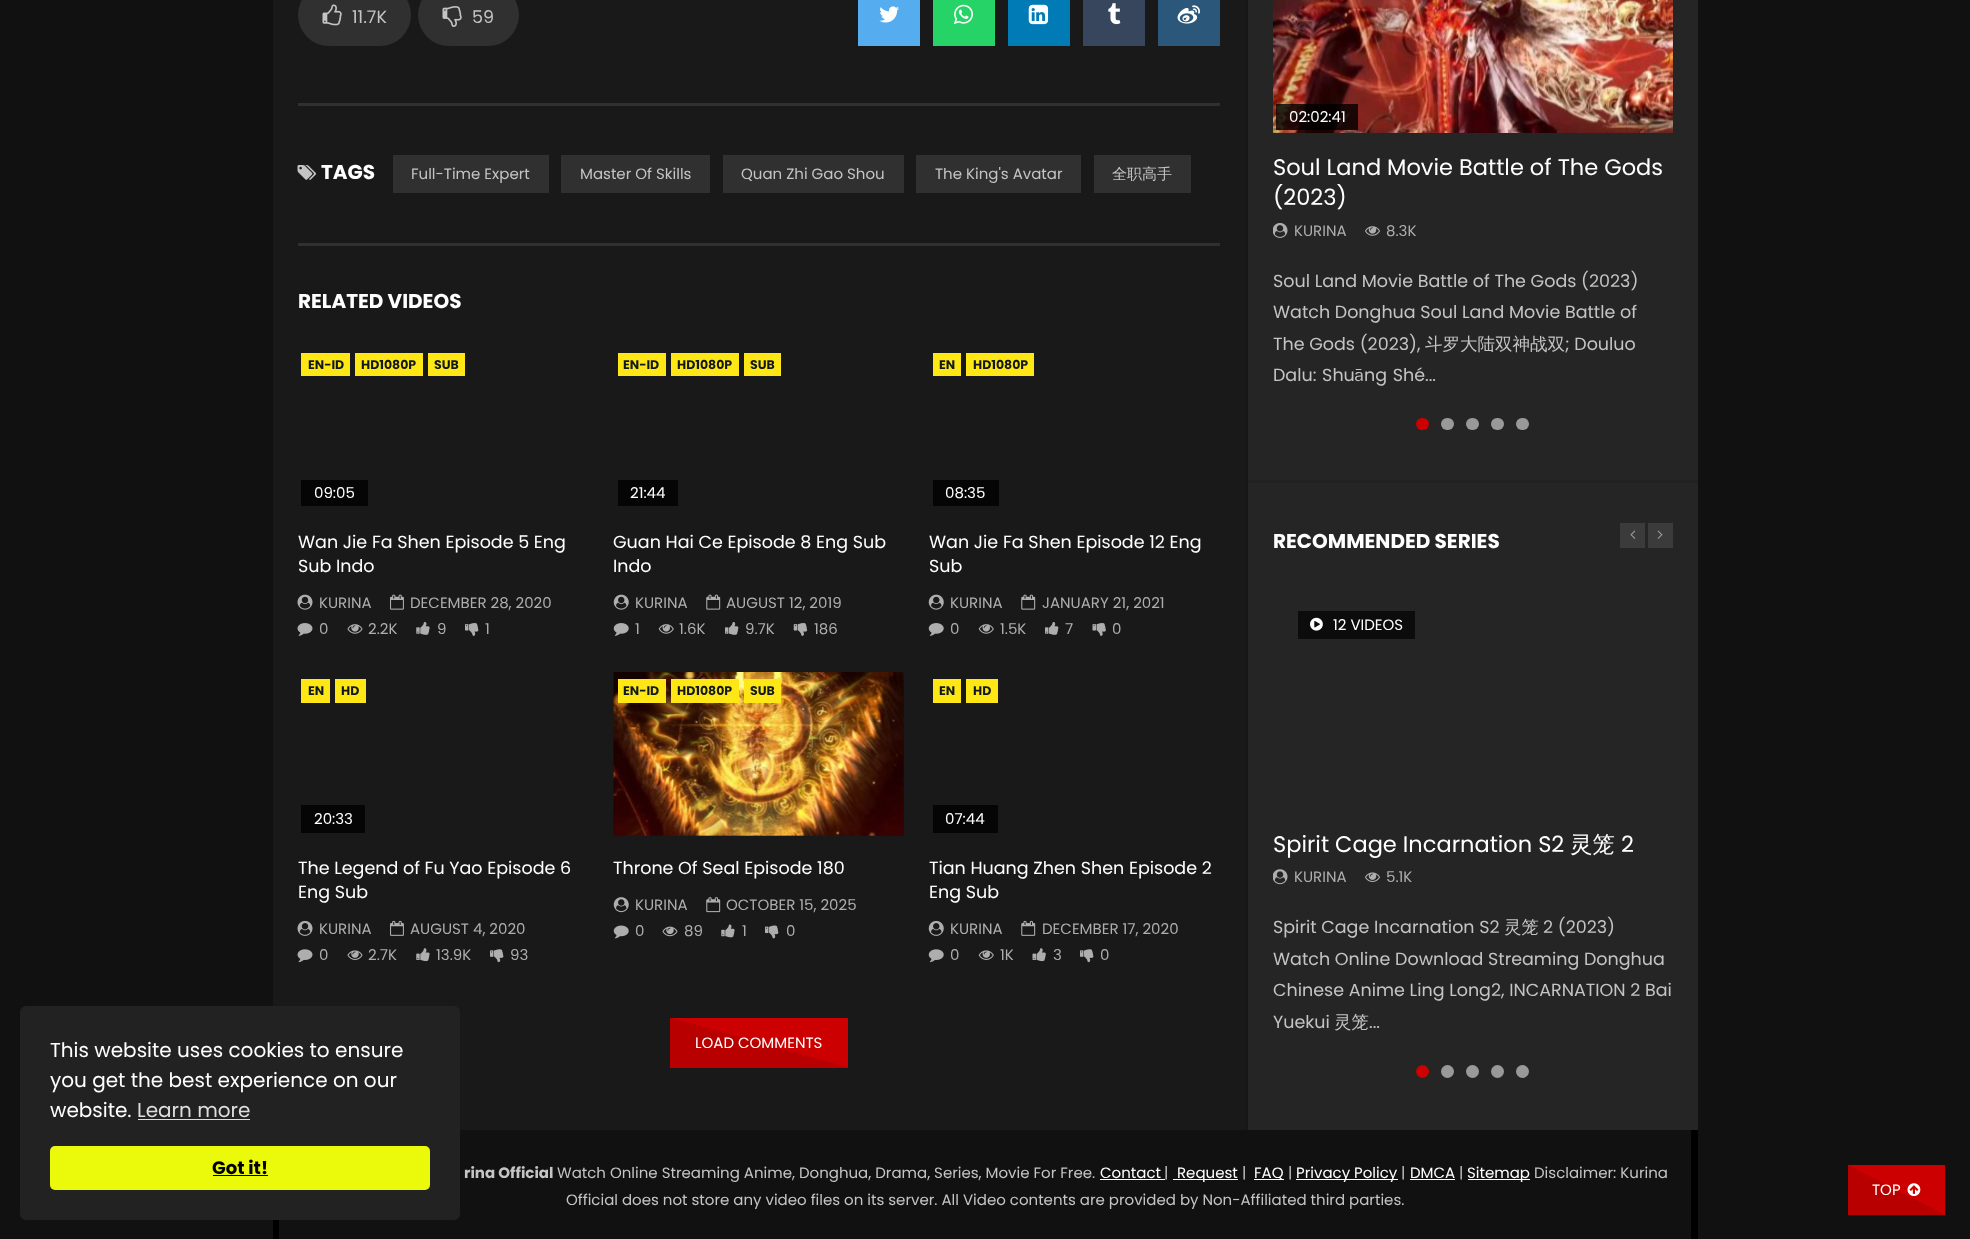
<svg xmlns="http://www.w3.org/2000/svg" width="1970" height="1239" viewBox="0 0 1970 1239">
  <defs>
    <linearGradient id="g1" gradientUnits="userSpaceOnUse" x1="772" y1="996" x2="746" y2="1089"><stop offset="0.5" stop-color="rgb(204,0,0)"/><stop offset="0.5" stop-color="rgb(184,0,0)"/></linearGradient>
    <linearGradient id="g2" gradientUnits="userSpaceOnUse" x1="1917" y1="1150" x2="1876" y2="1230"><stop offset="0.5" stop-color="rgb(204,0,0)"/><stop offset="0.5" stop-color="rgb(184,0,0)"/></linearGradient>
  </defs>
  <rect width="100%" height="100%" fill="rgb(17,17,17)"/>
  <rect x="273" y="0" width="972" height="1130" fill="rgb(25,25,25)"/>
  <rect x="273" y="1130" width="1425" height="109" fill="rgb(0,0,0)"/>
  <rect x="279" y="1130" width="1412" height="109" fill="rgb(17,17,17)"/>
  <rect x="20" y="1006" width="440" height="214" rx="6" fill="rgb(34,34,34)"/>
  <g font-family="Poppins" font-size="20" fill="rgb(255,255,255)">
    <text>
      <tspan x="50" y="1057">This website uses cookies to ensure</tspan>
      <tspan x="50" y="1087">you get the best experience on our</tspan>
      <tspan x="50" y="1117">website.</tspan>
    </text>
  </g>
  <text x="137" y="1117" font-family="Poppins" font-size="20" fill="rgb(222,222,222)">Learn more</text>
  <rect x="138" y="1119" width="112" height="1" fill="rgb(222,222,222)"/>
  <rect x="50" y="1146" width="380" height="44" rx="5" fill="rgb(235,249,11)"/>
  <text x="212" y="1174" font-family="Poppins" font-size="18" font-weight="bold" fill="rgb(0,0,0)">Got it!</text>
  <rect x="213" y="1175" width="55" height="1" fill="rgb(0,0,0)"/>
  <rect x="1245" y="0" width="3" height="1130" fill="rgb(23,23,23)"/>
  <rect x="298" y="103" width="922" height="3" fill="rgb(48,48,48)"/>
  <rect x="298" y="-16" width="113" height="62" rx="31" fill="rgb(48,48,48)"/>
  <image x="322" y="4" width="20" height="22" href="pic1.png"/>
  <text x="352" y="23" font-family="Poppins" font-size="17.5" fill="rgb(196,196,196)">11.7K</text>
  <rect x="418" y="-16" width="101" height="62" rx="31" fill="rgb(48,48,48)"/>
  <image x="442" y="6" width="20" height="21" href="pic2.png"/>
  <text x="472" y="23" font-family="Poppins" font-size="17.5" fill="rgb(196,196,196)">59</text>
  <rect x="858" y="0" width="62" height="46" fill="rgb(85,172,238)"/>
  <image x="879" y="6" width="20" height="17" href="pic3.png"/>
  <rect x="933" y="0" width="62" height="46" fill="rgb(37,211,102)"/>
  <image x="953" y="4" width="20" height="21" href="pic4.png"/>
  <rect x="1008" y="0" width="62" height="46" fill="rgb(0,123,182)"/>
  <image x="1028" y="4" width="21" height="21" href="pic5.png"/>
  <rect x="1083" y="0" width="62" height="46" fill="rgb(55,70,93)"/>
  <image x="1108" y="3" width="13" height="22" href="pic6.png"/>
  <rect x="1158" y="0" width="62" height="46" fill="rgb(43,88,122)"/>
  <image x="1177" y="5" width="23" height="19" href="pic7.png"/>
  <image x="297" y="165" width="19" height="15" href="pic8.png"/>
  <text x="321" y="179" font-family="Poppins" font-size="20" font-weight="bold" fill="rgb(255,255,255)">TAGS</text>
  <rect x="393" y="155" width="156" height="38" fill="rgb(48,48,48)"/>
  <text x="411" y="179" font-family="Poppins" font-size="15" fill="rgb(196,196,196)">Full-Time Expert</text>
  <rect x="561" y="155" width="149" height="38" fill="rgb(48,48,48)"/>
  <text x="580" y="179" font-family="Poppins" font-size="15" fill="rgb(196,196,196)">Master Of Skills</text>
  <rect x="723" y="155" width="181" height="38" fill="rgb(48,48,48)"/>
  <text x="741" y="179" font-family="Poppins" font-size="15" fill="rgb(196,196,196)">Quan Zhi Gao Shou</text>
  <rect x="916" y="155" width="165" height="38" fill="rgb(48,48,48)"/>
  <text x="935" y="179" font-family="Poppins" font-size="15" fill="rgb(196,196,196)">The King's Avatar</text>
  <rect x="1094" y="155" width="97" height="38" fill="rgb(48,48,48)"/>
  <text x="1112" y="179" font-family="WenQuanYi Zen Hei" font-size="15" font-weight="500" fill="rgb(196,196,196)">全职高手</text>
  <rect x="298" y="243" width="922" height="3" fill="rgb(48,48,48)"/>
  <text x="298" y="308" font-family="Poppins" font-size="20" font-weight="bold" fill="rgb(255,255,255)">RELATED VIDEOS</text>
  <rect x="301" y="353" width="49" height="23" fill="rgb(255,231,21)"/>
  <text x="308" y="369" font-family="Poppins" font-size="12.5" font-weight="bold" fill="rgb(16,25,32)">EN-ID</text>
  <rect x="355" y="353" width="68" height="23" fill="rgb(255,231,21)"/>
  <text x="361" y="369" font-family="Poppins" font-size="12.5" font-weight="bold" fill="rgb(16,25,32)">HD1080P</text>
  <rect x="428" y="353" width="37" height="23" fill="rgb(255,231,21)"/>
  <text x="434" y="369" font-family="Poppins" font-size="12.5" font-weight="bold" fill="rgb(16,25,32)">SUB</text>
  <rect x="301" y="480" width="67" height="26" fill="rgb(5,5,5)"/>
  <text x="314" y="498" font-family="Poppins" font-size="15" fill="rgb(255,255,255)">09:05</text>
  <g font-family="Poppins" font-size="17.5" fill="rgb(255,255,255)">
    <text>
      <tspan x="298" y="548">Wan Jie Fa Shen Episode 5 Eng</tspan>
      <tspan x="298" y="572">Sub Indo</tspan>
    </text>
  </g>
  <image x="297" y="594" width="16" height="16" href="pic9.png"/>
  <text x="319" y="608" font-family="Poppins" font-size="15" fill="rgb(174,174,174)">KURINA</text>
  <image x="390" y="594" width="14" height="16" href="pic10.png"/>
  <text x="410" y="608" font-family="Poppins" font-size="15" fill="rgb(174,174,174)">DECEMBER 28, 2020</text>
  <image x="297" y="623" width="16" height="13" href="pic11.png"/>
  <text x="319" y="634" font-family="Poppins" font-size="15" fill="rgb(174,174,174)">0</text>
  <image x="347" y="624" width="16" height="10" href="pic12.png"/>
  <text x="368" y="634" font-family="Poppins" font-size="15" fill="rgb(174,174,174)">2.2K</text>
  <image x="416" y="622" width="14" height="13" href="pic13.png"/>
  <text x="437" y="634" font-family="Poppins" font-size="15" fill="rgb(174,174,174)">9</text>
  <image x="465" y="623" width="14" height="13" href="pic14.png"/>
  <text x="485" y="634" font-family="Poppins" font-size="15" fill="rgb(174,174,174)">1</text>
  <rect x="618" y="353" width="48" height="23" fill="rgb(255,231,21)"/>
  <text x="623" y="369" font-family="Poppins" font-size="12.5" font-weight="bold" fill="rgb(16,25,32)">EN-ID</text>
  <rect x="671" y="353" width="68" height="23" fill="rgb(255,231,21)"/>
  <text x="677" y="369" font-family="Poppins" font-size="12.5" font-weight="bold" fill="rgb(16,25,32)">HD1080P</text>
  <rect x="744" y="353" width="37" height="23" fill="rgb(255,231,21)"/>
  <text x="750" y="369" font-family="Poppins" font-size="12.5" font-weight="bold" fill="rgb(16,25,32)">SUB</text>
  <rect x="618" y="480" width="60" height="26" fill="rgb(5,5,5)"/>
  <text x="630" y="498" font-family="Poppins" font-size="15" fill="rgb(255,255,255)">21:44</text>
  <g font-family="Poppins" font-size="17.5" fill="rgb(255,255,255)">
    <text>
      <tspan x="613" y="548">Guan Hai Ce Episode 8 Eng Sub</tspan>
      <tspan x="613" y="572">Indo</tspan>
    </text>
  </g>
  <image x="613" y="594" width="16" height="16" href="pic15.png"/>
  <text x="635" y="608" font-family="Poppins" font-size="15" fill="rgb(174,174,174)">KURINA</text>
  <image x="706" y="594" width="15" height="16" href="pic16.png"/>
  <text x="726" y="608" font-family="Poppins" font-size="15" fill="rgb(174,174,174)">AUGUST 12, 2019</text>
  <image x="613" y="623" width="16" height="13" href="pic17.png"/>
  <text x="635" y="634" font-family="Poppins" font-size="15" fill="rgb(174,174,174)">1</text>
  <image x="658" y="624" width="16" height="10" href="pic18.png"/>
  <text x="679" y="634" font-family="Poppins" font-size="15" fill="rgb(174,174,174)">1.6K</text>
  <image x="725" y="622" width="14" height="13" href="pic19.png"/>
  <text x="745" y="634" font-family="Poppins" font-size="15" fill="rgb(174,174,174)">9.7K</text>
  <image x="793" y="623" width="15" height="13" href="pic20.png"/>
  <text x="814" y="634" font-family="Poppins" font-size="15" fill="rgb(174,174,174)">186</text>
  <rect x="933" y="353" width="28" height="23" fill="rgb(255,231,21)"/>
  <text x="939" y="369" font-family="Poppins" font-size="12.5" font-weight="bold" fill="rgb(16,25,32)">EN</text>
  <rect x="966" y="353" width="68" height="23" fill="rgb(255,231,21)"/>
  <text x="973" y="369" font-family="Poppins" font-size="12.5" font-weight="bold" fill="rgb(16,25,32)">HD1080P</text>
  <rect x="933" y="480" width="66" height="26" fill="rgb(5,5,5)"/>
  <text x="945" y="498" font-family="Poppins" font-size="15" fill="rgb(255,255,255)">08:35</text>
  <g font-family="Poppins" font-size="17.5" fill="rgb(255,255,255)">
    <text>
      <tspan x="929" y="548">Wan Jie Fa Shen Episode 12 Eng</tspan>
      <tspan x="929" y="572">Sub</tspan>
    </text>
  </g>
  <image x="928" y="594" width="16" height="16" href="pic15.png"/>
  <text x="950" y="608" font-family="Poppins" font-size="15" fill="rgb(174,174,174)">KURINA</text>
  <image x="1021" y="594" width="15" height="16" href="pic16.png"/>
  <text x="1042" y="608" font-family="Poppins" font-size="15" fill="rgb(174,174,174)">JANUARY 21, 2021</text>
  <image x="928" y="623" width="16" height="13" href="pic17.png"/>
  <text x="950" y="634" font-family="Poppins" font-size="15" fill="rgb(174,174,174)">0</text>
  <image x="978" y="624" width="16" height="10" href="pic18.png"/>
  <text x="1000" y="634" font-family="Poppins" font-size="15" fill="rgb(174,174,174)">1.5K</text>
  <image x="1045" y="622" width="14" height="13" href="pic19.png"/>
  <text x="1065" y="634" font-family="Poppins" font-size="15" fill="rgb(174,174,174)">7</text>
  <image x="1092" y="623" width="14" height="13" href="pic21.png"/>
  <text x="1112" y="634" font-family="Poppins" font-size="15" fill="rgb(174,174,174)">0</text>
  <rect x="301" y="679" width="29" height="24" fill="rgb(255,231,21)"/>
  <text x="308" y="695" font-family="Poppins" font-size="12.5" font-weight="bold" fill="rgb(16,25,32)">EN</text>
  <rect x="335" y="679" width="31" height="24" fill="rgb(255,231,21)"/>
  <text x="341" y="695" font-family="Poppins" font-size="12.5" font-weight="bold" fill="rgb(16,25,32)">HD</text>
  <rect x="301" y="805" width="64" height="28" fill="rgb(5,5,5)"/>
  <text x="314" y="824" font-family="Poppins" font-size="15" fill="rgb(255,255,255)">20:33</text>
  <g font-family="Poppins" font-size="17.5" fill="rgb(255,255,255)">
    <text>
      <tspan x="298" y="874">The Legend of Fu Yao Episode 6</tspan>
      <tspan x="298" y="898">Eng Sub</tspan>
    </text>
  </g>
  <image x="297" y="920" width="16" height="16" href="pic22.png"/>
  <text x="319" y="934" font-family="Poppins" font-size="15" fill="rgb(174,174,174)">KURINA</text>
  <image x="390" y="920" width="14" height="16" href="pic23.png"/>
  <text x="410" y="934" font-family="Poppins" font-size="15" fill="rgb(174,174,174)">AUGUST 4, 2020</text>
  <image x="297" y="949" width="16" height="14" href="pic24.png"/>
  <text x="319" y="960" font-family="Poppins" font-size="15" fill="rgb(174,174,174)">0</text>
  <image x="347" y="950" width="16" height="10" href="pic25.png"/>
  <text x="368" y="960" font-family="Poppins" font-size="15" fill="rgb(174,174,174)">2.7K</text>
  <image x="416" y="948" width="14" height="14" href="pic26.png"/>
  <text x="436" y="960" font-family="Poppins" font-size="15" fill="rgb(174,174,174)">13.9K</text>
  <image x="490" y="949" width="14" height="14" href="pic27.png"/>
  <text x="510" y="960" font-family="Poppins" font-size="15" fill="rgb(174,174,174)">93</text>
  <image x="613" y="672" width="291" height="164" href="pic28.png"/>
  <rect x="618" y="679" width="48" height="24" fill="rgb(255,231,21)"/>
  <text x="623" y="695" font-family="Poppins" font-size="12.5" font-weight="bold" fill="rgb(16,25,32)">EN-ID</text>
  <rect x="671" y="679" width="68" height="24" fill="rgb(255,231,21)"/>
  <text x="677" y="695" font-family="Poppins" font-size="12.5" font-weight="bold" fill="rgb(16,25,32)">HD1080P</text>
  <rect x="744" y="679" width="37" height="24" fill="rgb(255,231,21)"/>
  <text x="750" y="695" font-family="Poppins" font-size="12.5" font-weight="bold" fill="rgb(16,25,32)">SUB</text>
  <text x="613" y="874" font-family="Poppins" font-size="17.5" fill="rgb(255,255,255)">Throne Of Seal Episode 180</text>
  <image x="613" y="897" width="16" height="16" href="pic29.png"/>
  <text x="635" y="910" font-family="Poppins" font-size="15" fill="rgb(174,174,174)">KURINA</text>
  <image x="706" y="897" width="15" height="16" href="pic30.png"/>
  <text x="726" y="910" font-family="Poppins" font-size="15" fill="rgb(174,174,174)">OCTOBER 15, 2025</text>
  <image x="613" y="925" width="16" height="14" href="pic31.png"/>
  <text x="635" y="936" font-family="Poppins" font-size="15" fill="rgb(174,174,174)">0</text>
  <image x="662" y="926" width="16" height="11" href="pic32.png"/>
  <text x="684" y="936" font-family="Poppins" font-size="15" fill="rgb(174,174,174)">89</text>
  <image x="721" y="924" width="14" height="14" href="pic33.png"/>
  <text x="742" y="936" font-family="Poppins" font-size="15" fill="rgb(174,174,174)">1</text>
  <image x="765" y="925" width="14" height="14" href="pic34.png"/>
  <text x="786" y="936" font-family="Poppins" font-size="15" fill="rgb(174,174,174)">0</text>
  <rect x="933" y="679" width="28" height="24" fill="rgb(255,231,21)"/>
  <text x="939" y="695" font-family="Poppins" font-size="12.5" font-weight="bold" fill="rgb(16,25,32)">EN</text>
  <rect x="966" y="679" width="32" height="24" fill="rgb(255,231,21)"/>
  <text x="973" y="695" font-family="Poppins" font-size="12.5" font-weight="bold" fill="rgb(16,25,32)">HD</text>
  <rect x="933" y="805" width="65" height="28" fill="rgb(5,5,5)"/>
  <text x="945" y="824" font-family="Poppins" font-size="15" fill="rgb(255,255,255)">07:44</text>
  <g font-family="Poppins" font-size="17.5" fill="rgb(255,255,255)">
    <text>
      <tspan x="929" y="874">Tian Huang Zhen Shen Episode 2</tspan>
      <tspan x="929" y="898">Eng Sub</tspan>
    </text>
  </g>
  <image x="928" y="920" width="16" height="16" href="pic35.png"/>
  <text x="950" y="934" font-family="Poppins" font-size="15" fill="rgb(174,174,174)">KURINA</text>
  <image x="1021" y="920" width="15" height="16" href="pic36.png"/>
  <text x="1042" y="934" font-family="Poppins" font-size="15" fill="rgb(174,174,174)">DECEMBER 17, 2020</text>
  <image x="928" y="949" width="16" height="14" href="pic37.png"/>
  <text x="950" y="960" font-family="Poppins" font-size="15" fill="rgb(174,174,174)">0</text>
  <image x="978" y="950" width="16" height="10" href="pic38.png"/>
  <text x="1000" y="960" font-family="Poppins" font-size="15" fill="rgb(174,174,174)">1K</text>
  <image x="1032" y="948" width="14" height="14" href="pic39.png"/>
  <text x="1053" y="960" font-family="Poppins" font-size="15" fill="rgb(174,174,174)">3</text>
  <image x="1080" y="949" width="14" height="14" href="pic27.png"/>
  <text x="1100" y="960" font-family="Poppins" font-size="15" fill="rgb(174,174,174)">0</text>
  <rect x="670" y="1018" width="178" height="50" fill="url(#g1)"/>
  <text x="695" y="1048" font-family="Poppins" font-size="15" fill="rgb(255,255,255)">LOAD COMMENTS</text>
  <rect x="1248" y="0" width="450" height="1130" fill="rgb(37,37,37)"/>
  <rect x="1248" y="480" width="450" height="3" fill="rgb(33,33,33)"/>
  <image x="1273" y="0" width="400" height="133" href="pic40.png"/>
  <rect x="1276" y="104" width="82" height="26" fill="rgba(0,0,0,0.8)"/>
  <text x="1289" y="122" font-family="Poppins" font-size="15" fill="rgb(255,255,255)">02:02:41</text>
  <g font-family="Poppins" font-size="22.5" fill="rgb(255,255,255)">
    <text>
      <tspan x="1273" y="175">Soul Land Movie Battle of The Gods</tspan>
      <tspan x="1273" y="205">(2023)</tspan>
    </text>
  </g>
  <image x="1273" y="223" width="15" height="15" href="pic41.png"/>
  <text x="1294" y="236" font-family="Poppins" font-size="15" fill="rgb(174,174,174)">KURINA</text>
  <image x="1365" y="226" width="15" height="10" href="pic42.png"/>
  <text x="1386" y="236" font-family="Poppins" font-size="15" fill="rgb(174,174,174)">8.3K</text>
  <g font-family="Poppins" font-size="17.5" fill="rgb(196,196,196)">
    <text>
      <tspan x="1273" y="287">Soul Land Movie Battle of The Gods (2023)</tspan>
      <tspan x="1273" y="318">Watch Donghua Soul Land Movie Battle of</tspan>
      <tspan x="1273" y="350">The Gods (2023),</tspan>
    </text>
  </g>
  <text x="1425" y="350" font-family="WenQuanYi Zen Hei" font-size="17.5" font-weight="500" fill="rgb(196,196,196)">斗罗大陆双神战双</text>
  <g font-family="Poppins" font-size="17.5" fill="rgb(196,196,196)">
    <text x="1565" y="350">; Douluo</text>
    <text x="1273" y="381" word-spacing="1">Dalu: Shu</text>
  </g>
  <text x="1354" y="381" font-family="WenQuanYi Zen Hei" font-size="17.5" font-weight="500" fill="rgb(196,196,196)">ā</text>
  <text x="1364" y="381" word-spacing="1" font-family="Poppins" font-size="17.5" fill="rgb(196,196,196)">ng Shé...</text>
  <rect x="1416" y="418" width="13" height="12" rx="6" fill="rgb(204,0,0)"/>
  <rect x="1441" y="418" width="13" height="12" rx="6" fill="rgb(153,153,153)"/>
  <rect x="1466" y="418" width="13" height="12" rx="6" fill="rgb(153,153,153)"/>
  <rect x="1491" y="418" width="13" height="12" rx="6" fill="rgb(153,153,153)"/>
  <rect x="1516" y="418" width="13" height="12" rx="6" fill="rgb(153,153,153)"/>
  <text x="1273" y="548" font-family="Poppins" font-size="20" font-weight="bold" fill="rgb(255,255,255)">RECOMMENDED SERIES</text>
  <rect x="1620" y="523" width="25" height="25" fill="rgb(59,59,59)"/>
  <image x="1630" y="530" width="6" height="9" href="pic43.png"/>
  <rect x="1648" y="523" width="25" height="25" fill="rgb(59,59,59)"/>
  <image x="1657" y="530" width="6" height="9" href="pic44.png"/>
  <rect x="1298" y="611" width="117" height="28" fill="rgb(12,12,12)"/>
  <image x="1310" y="617" width="13" height="14" href="pic45.png"/>
  <text x="1333" y="630" font-family="Poppins" font-size="15" fill="rgb(255,255,255)">12 VIDEOS</text>
  <text x="1273" y="852" font-family="Poppins" font-size="22.5" fill="rgb(255,255,255)">Spirit Cage Incarnation S2</text>
  <text x="1570" y="852" font-family="WenQuanYi Zen Hei" font-size="22.5" font-weight="500" fill="rgb(255,255,255)">灵笼</text>
  <text x="1621" y="852" font-family="Poppins" font-size="22.5" fill="rgb(255,255,255)">2</text>
  <image x="1273" y="869" width="15" height="16" href="pic46.png"/>
  <text x="1294" y="882" font-family="Poppins" font-size="15" fill="rgb(174,174,174)">KURINA</text>
  <image x="1365" y="872" width="15" height="10" href="pic47.png"/>
  <text x="1386" y="882" font-family="Poppins" font-size="15" fill="rgb(174,174,174)">5.1K</text>
  <text x="1273" y="933" font-family="Poppins" font-size="17.5" fill="rgb(196,196,196)">Spirit Cage Incarnation S2</text>
  <text x="1504" y="933" font-family="WenQuanYi Zen Hei" font-size="17.5" font-weight="500" fill="rgb(196,196,196)">灵笼</text>
  <g font-family="Poppins" font-size="17.5" fill="rgb(196,196,196)">
    <text x="1543" y="933">2 (2023)</text>
    <text>
      <tspan x="1273" y="965">Watch Online Download Streaming Donghua</tspan>
      <tspan x="1273" y="996">Chinese Anime Ling Long2, INCARNATION 2 Bai</tspan>
      <tspan x="1273" y="1028">Yuekui</tspan>
    </text>
  </g>
  <text x="1334" y="1028" font-family="WenQuanYi Zen Hei" font-size="17.5" font-weight="500" fill="rgb(196,196,196)">灵笼</text>
  <text x="1369" y="1028" font-family="Poppins" font-size="17.5" fill="rgb(196,196,196)">...</text>
  <circle cx="1422.5" cy="1071.5" r="6.5" fill="rgb(204,0,0)"/>
  <circle cx="1447.5" cy="1071.5" r="6.5" fill="rgb(153,153,153)"/>
  <circle cx="1472.5" cy="1071.5" r="6.5" fill="rgb(153,153,153)"/>
  <circle cx="1497.5" cy="1071.5" r="6.5" fill="rgb(153,153,153)"/>
  <circle cx="1522.5" cy="1071.5" r="6.5" fill="rgb(153,153,153)"/>
  <text x="464" y="1178" font-family="Poppins" font-size="15" font-weight="bold" fill="rgb(196,196,196)">rina Official</text>
  <text x="557" y="1178" font-family="Poppins" font-size="15" fill="rgb(196,196,196)">Watch Online Streaming Anime, Donghua, Drama, Series, Movie For Free.</text>
  <text x="1100" y="1178" font-family="Poppins" font-size="15" fill="rgb(255,255,255)">Contact</text>
  <rect x="1100" y="1179" width="65" height="1" fill="rgb(255,255,255)"/>
  <text x="1164" y="1178" font-family="Poppins" font-size="15" fill="rgb(196,196,196)">|</text>
  <rect x="1173" y="1179" width="65" height="1" fill="rgb(255,255,255)"/>
  <text x="1177" y="1178" font-family="Poppins" font-size="15" fill="rgb(255,255,255)">Request</text>
  <text x="1242" y="1178" font-family="Poppins" font-size="15" fill="rgb(196,196,196)">|</text>
  <rect x="1254" y="1179" width="30" height="1" fill="rgb(255,255,255)"/>
  <text x="1254" y="1178" font-family="Poppins" font-size="15" fill="rgb(255,255,255)">FAQ</text>
  <text x="1288" y="1178" font-family="Poppins" font-size="15" fill="rgb(196,196,196)">|</text>
  <rect x="1296" y="1179" width="102" height="1" fill="rgb(255,255,255)"/>
  <text x="1296" y="1178" font-family="Poppins" font-size="15" fill="rgb(255,255,255)">Privacy Policy</text>
  <text x="1401" y="1178" font-family="Poppins" font-size="15" fill="rgb(196,196,196)">|</text>
  <text x="1410" y="1178" font-family="Poppins" font-size="15" fill="rgb(255,255,255)">DMCA</text>
  <rect x="1410" y="1179" width="45" height="1" fill="rgb(255,255,255)"/>
  <text x="1459" y="1178" font-family="Poppins" font-size="15" fill="rgb(196,196,196)">|</text>
  <rect x="1468" y="1179" width="62" height="1" fill="rgb(255,255,255)"/>
  <text x="1467" y="1178" font-family="Poppins" font-size="15" fill="rgb(255,255,255)">Sitemap</text>
  <g font-family="Poppins" font-size="15" fill="rgb(196,196,196)">
    <text x="1534" y="1178">Disclaimer: Kurina</text>
    <text x="566" y="1205">Official does not store any video files on its server. All Video contents are provided by Non-Affiliated third parties.</text>
  </g>
  <rect x="1848" y="1165" width="97" height="50" fill="url(#g2)"/>
  <text x="1872" y="1195" font-family="Poppins" font-size="15" fill="rgb(255,255,255)">TOP</text>
  <image x="1907" y="1183" width="14" height="14" href="pic48.png"/>
</svg>
